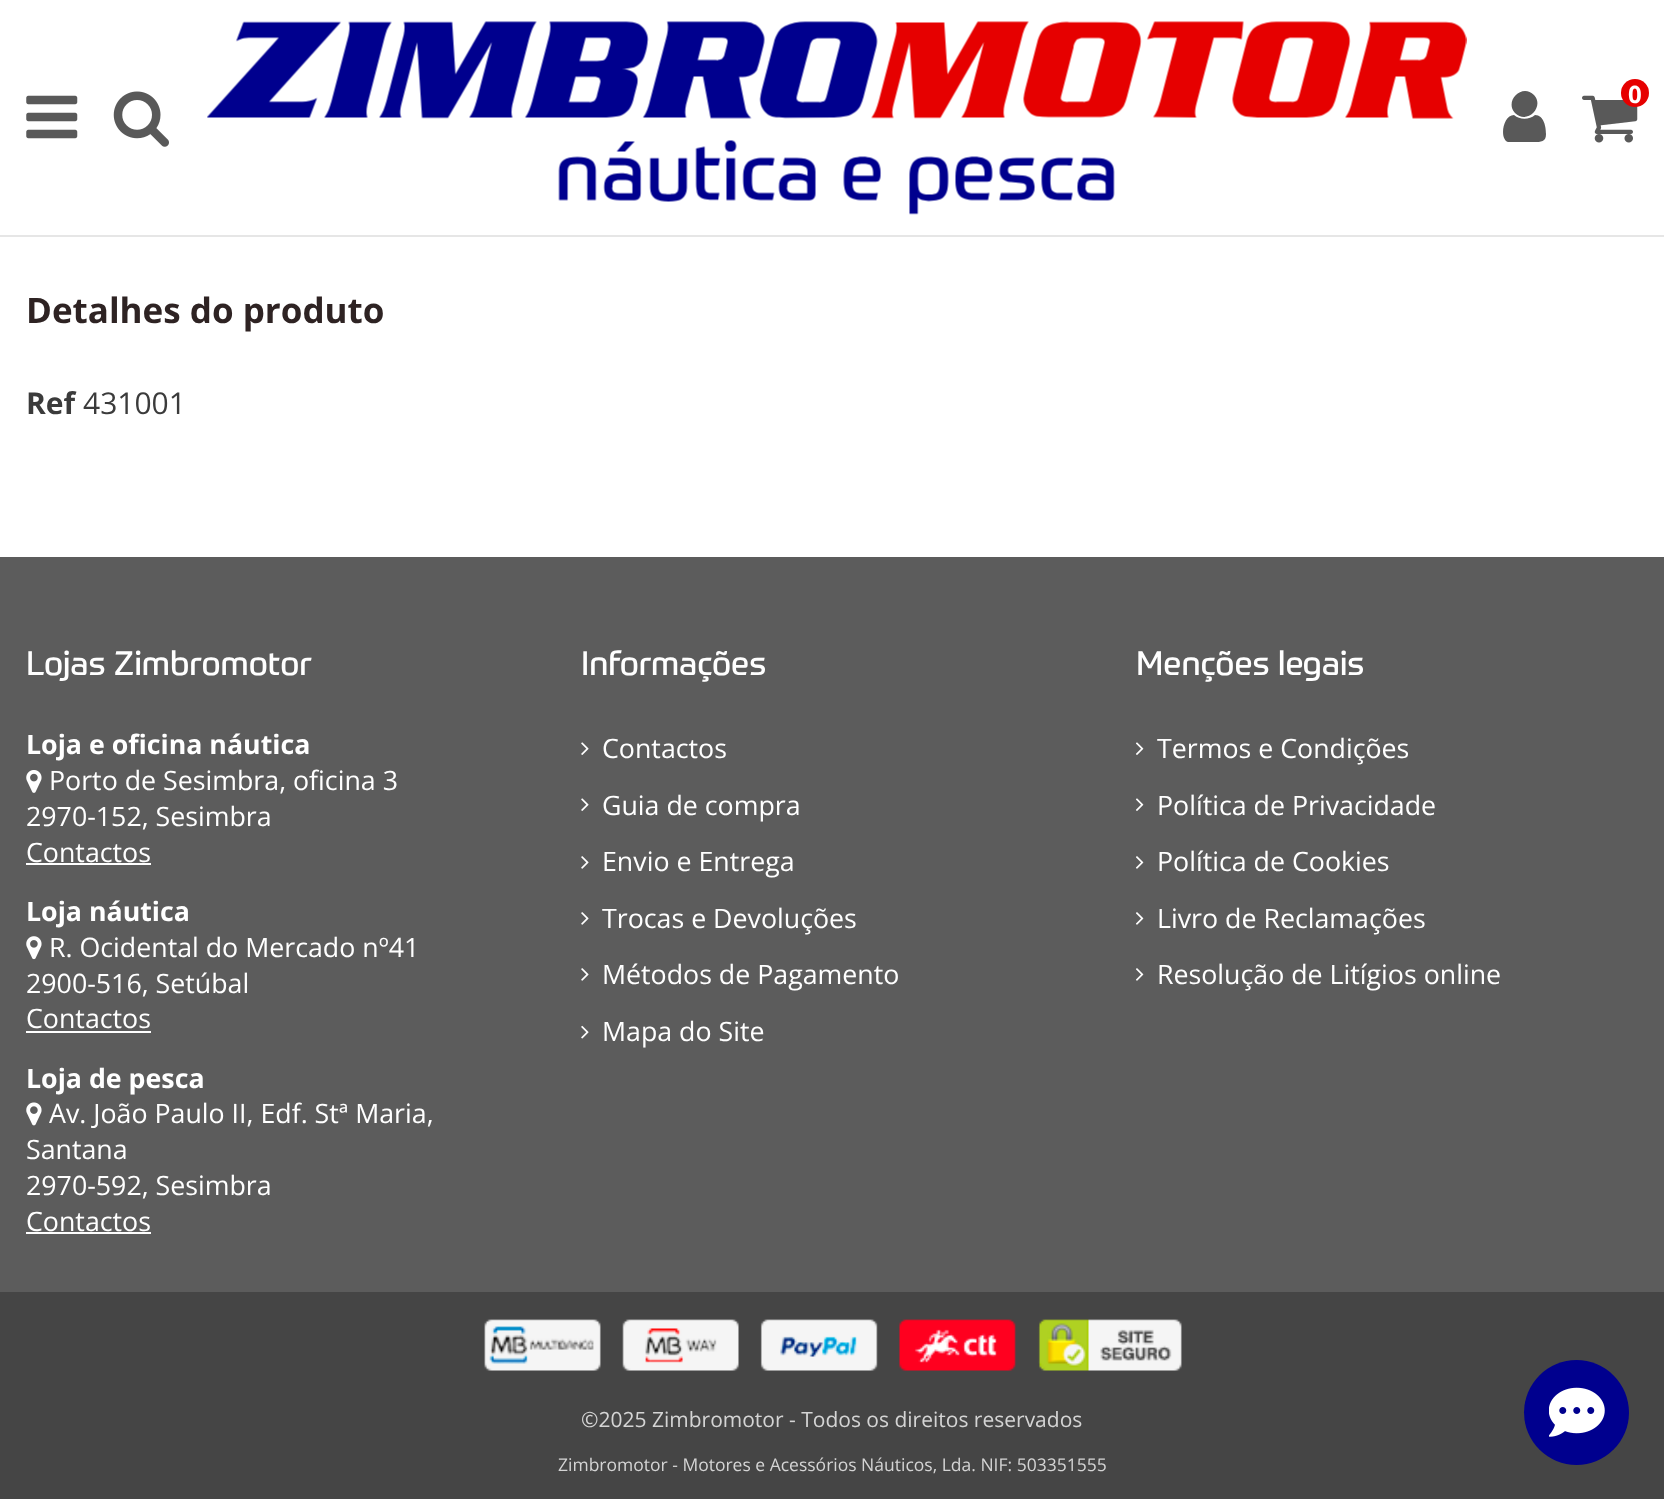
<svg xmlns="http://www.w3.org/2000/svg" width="1664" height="1499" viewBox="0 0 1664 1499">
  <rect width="100%" height="100%" fill="rgb(255,255,255)"/>
  <rect x="0" y="235" width="1664" height="2" fill="rgb(230,230,230)"/>
  <image x="26" y="95" width="52" height="44" href="pic1.png"/>
  <image x="113" y="91" width="56" height="56" href="pic2.png"/>
  <image x="207" y="21" width="1260" height="194" href="pic3.png"/>
  <path d="M1546 134C1546 142 1541 142 1534 142H1508C1499 139 1503 115 1514 115C1520 120 1529 120 1535 115C1544 115 1546 127 1546 134ZM1534 95C1545 107 1527 125 1515 113C1504 101 1522 83 1534 95Z" fill="rgb(89,89,89)"/>
  <image x="1582" y="95" width="56" height="48" href="pic4.png"/>
  <circle cx="1635" cy="93" r="14" fill="rgb(230,0,0)"/>
  <text x="1628" y="103" font-family="Open Sans" font-size="24" font-weight="bold" fill="rgb(255,255,255)">0</text>
  <text x="26" y="323" font-family="Open Sans" font-size="35" font-weight="bold" fill="rgb(46,35,35)">Detalhes do produto</text>
  <text x="26" y="414" font-family="Open Sans" font-size="30" font-weight="bold" fill="rgb(59,59,59)">Ref</text>
  <text x="83" y="414" font-family="Open Sans" font-size="30" fill="rgb(59,59,59)">431001</text>
  <rect x="0" y="557" width="1664" height="735" fill="rgb(92,92,92)"/>
  <text x="26" y="675" font-family="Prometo" font-size="33.25" fill="rgb(255,255,255)">Lojas Zimbromotor</text>
  <text x="26" y="754" font-family="Open Sans" font-size="26.75" font-weight="bold" fill="rgb(255,255,255)">Loja e oficina náutica</text>
  <image x="26" y="770" width="16" height="23" href="pic5.png"/>
  <g font-family="Open Sans" font-size="26.75" fill="rgb(255,255,255)">
    <text x="49" y="790">Porto de Sesimbra, oficina 3</text>
    <text>
      <tspan x="26" y="826">2970-152, Sesimbra</tspan>
      <tspan x="26" y="862">Contactos</tspan>
    </text>
  </g>
  <rect x="26" y="863" width="125" height="2" fill="rgb(255,255,255)"/>
  <text x="26" y="921" font-family="Open Sans" font-size="26.75" font-weight="bold" fill="rgb(255,255,255)">Loja náutica</text>
  <image x="26" y="936" width="16" height="24" href="pic6.png"/>
  <g font-family="Open Sans" font-size="26.75" fill="rgb(255,255,255)">
    <text x="49" y="957">R. Ocidental do Mercado nº41</text>
    <text>
      <tspan x="26" y="993">2900-516, Setúbal</tspan>
      <tspan x="26" y="1028">Contactos</tspan>
    </text>
  </g>
  <rect x="26" y="1031" width="125" height="2" fill="rgb(255,255,255)"/>
  <text x="26" y="1088" font-family="Open Sans" font-size="26.75" font-weight="bold" fill="rgb(255,255,255)">Loja de pesca</text>
  <image x="26" y="1102" width="16" height="24" href="pic7.png"/>
  <g font-family="Open Sans" font-size="26.75" fill="rgb(255,255,255)">
    <text x="49" y="1123">Av. João Paulo II, Edf. Stª Maria,</text>
    <text>
      <tspan x="26" y="1159">Santana</tspan>
      <tspan x="26" y="1195">2970-592, Sesimbra</tspan>
      <tspan x="26" y="1231">Contactos</tspan>
    </text>
  </g>
  <rect x="26" y="1232" width="125" height="2" fill="rgb(255,255,255)"/>
  <text x="581" y="675" font-family="Prometo" font-size="33.25" fill="rgb(255,255,255)">Informações</text>
  <image x="581" y="742" width="8" height="13" href="pic8.png"/>
  <text x="602" y="758" font-family="Open Sans" font-size="26.75" fill="rgb(255,255,255)">Contactos</text>
  <image x="581" y="798" width="8" height="13" href="pic8.png"/>
  <text x="602" y="815" font-family="Open Sans" font-size="26.75" fill="rgb(255,255,255)">Guia de compra</text>
  <image x="581" y="856" width="8" height="13" href="pic9.png"/>
  <text x="602" y="871" font-family="Open Sans" font-size="26.75" fill="rgb(255,255,255)">Envio e Entrega</text>
  <image x="581" y="912" width="8" height="13" href="pic9.png"/>
  <text x="602" y="928" font-family="Open Sans" font-size="26.75" fill="rgb(255,255,255)">Trocas e Devoluções</text>
  <image x="581" y="968" width="8" height="13" href="pic9.png"/>
  <text x="602" y="984" font-family="Open Sans" font-size="26.75" fill="rgb(255,255,255)">Métodos de Pagamento</text>
  <image x="581" y="1025" width="8" height="14" href="pic10.png"/>
  <text x="602" y="1041" font-family="Open Sans" font-size="26.75" fill="rgb(255,255,255)">Mapa do Site</text>
  <text x="1136" y="675" font-family="Prometo" font-size="33.25" fill="rgb(255,255,255)">Menções legais</text>
  <image x="1136" y="742" width="8" height="13" href="pic11.png"/>
  <text x="1157" y="758" font-family="Open Sans" font-size="26.75" fill="rgb(255,255,255)">Termos e Condições</text>
  <image x="1136" y="798" width="8" height="13" href="pic11.png"/>
  <text x="1157" y="815" font-family="Open Sans" font-size="26.75" fill="rgb(255,255,255)">Política de Privacidade</text>
  <image x="1136" y="856" width="8" height="13" href="pic12.png"/>
  <text x="1157" y="871" font-family="Open Sans" font-size="26.75" fill="rgb(255,255,255)">Política de Cookies</text>
  <image x="1136" y="912" width="8" height="13" href="pic12.png"/>
  <text x="1157" y="928" font-family="Open Sans" font-size="26.75" fill="rgb(255,255,255)">Livro de Reclamações</text>
  <image x="1136" y="968" width="8" height="13" href="pic12.png"/>
  <text x="1157" y="984" font-family="Open Sans" font-size="26.75" fill="rgb(255,255,255)">Resolução de Litígios online</text>
  <rect x="0" y="1292" width="1664" height="207" fill="rgb(69,69,69)"/>
  <image x="484" y="1319" width="698" height="52" href="pic13.png"/>
  <text x="581" y="1427" font-family="Open Sans" font-size="21" fill="rgb(212,212,212)">©2025 Zimbromotor - Todos os direitos reservados</text>
  <text x="558" y="1471" font-family="Open Sans" font-size="17.5" fill="rgb(212,212,212)">Zimbromotor - Motores e Acessórios Náuticos, Lda. NIF: 503351555</text>
  <circle cx="1576.5" cy="1412.5" r="52.5" fill="rgb(0,0,142)"/>
  <image x="1549" y="1387" width="56" height="50" href="pic14.png"/>
</svg>
